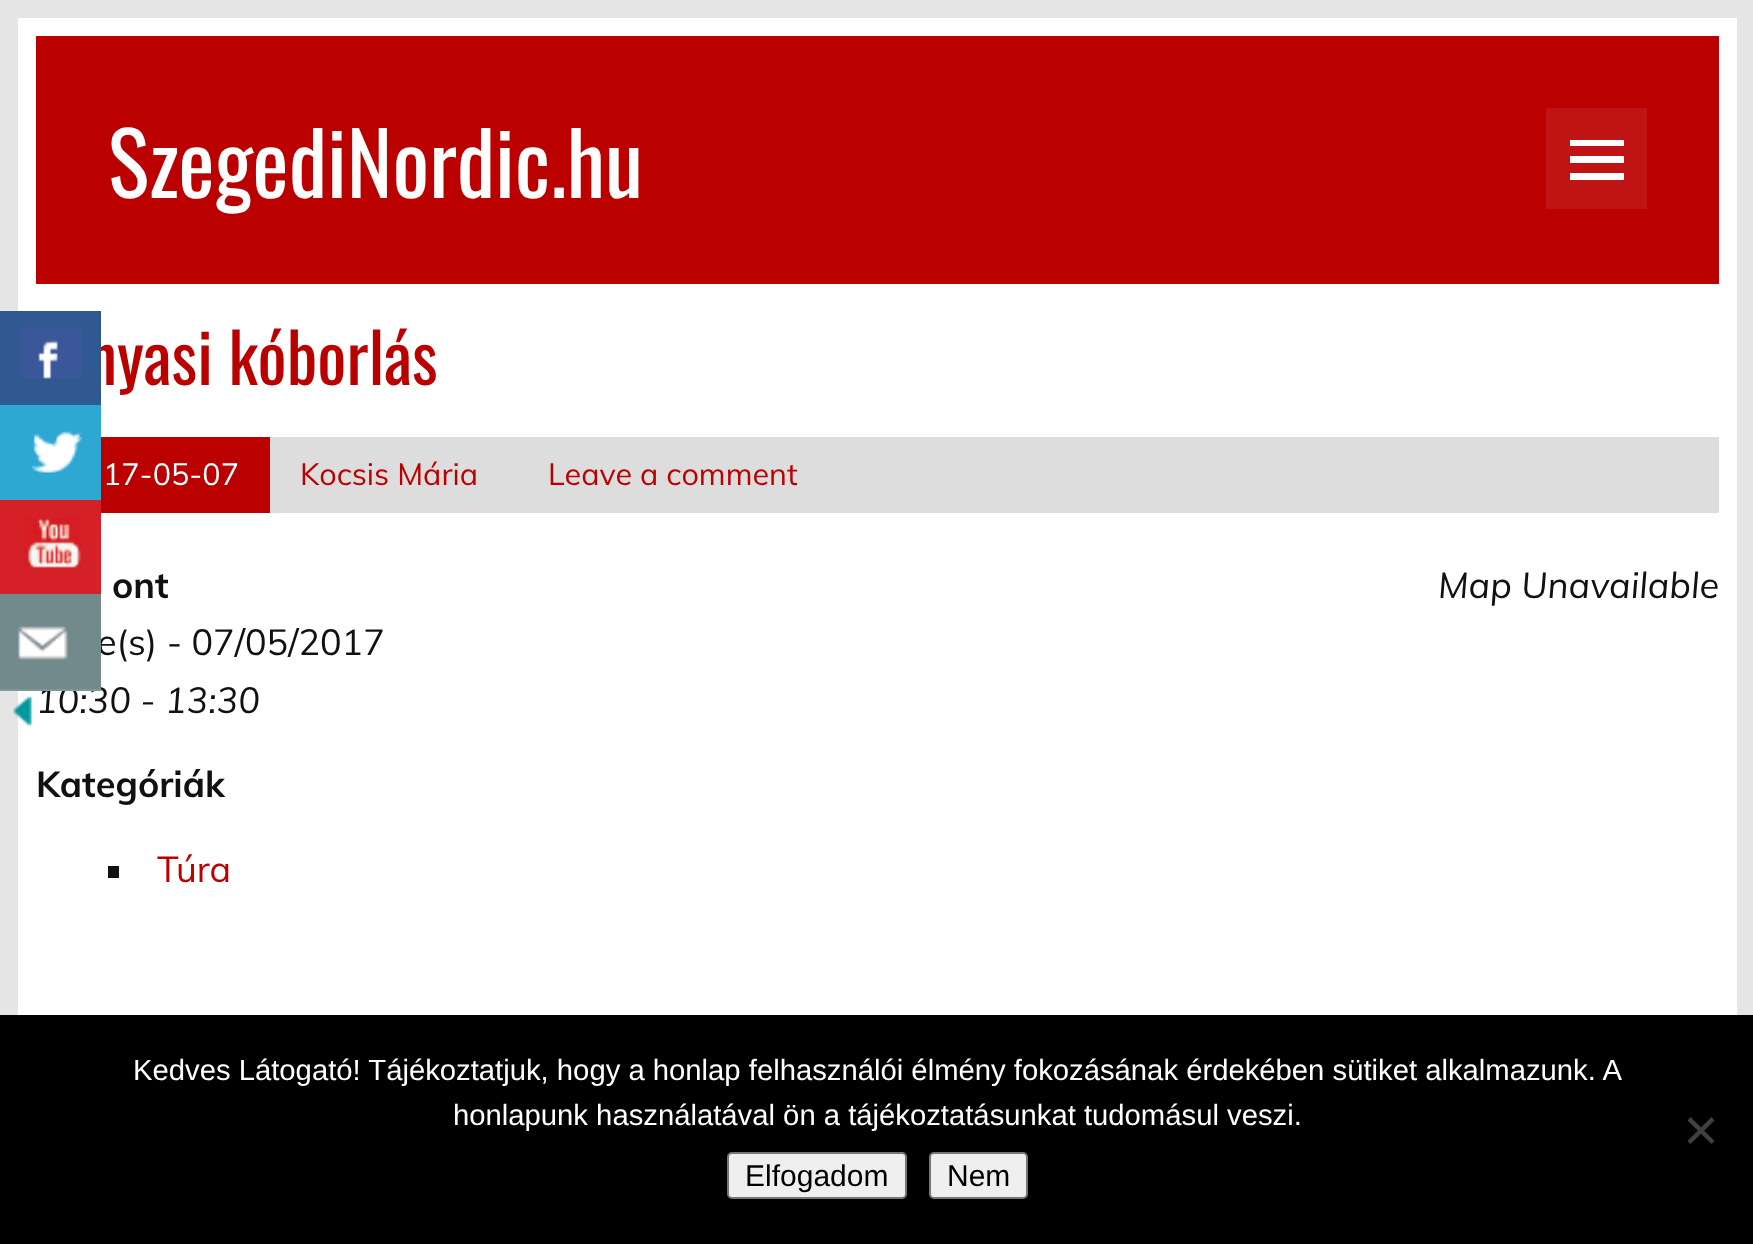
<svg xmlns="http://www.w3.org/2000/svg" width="1753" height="1244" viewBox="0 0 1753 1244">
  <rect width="100%" height="100%" fill="rgb(229,229,229)"/>
  <rect x="18" y="18" width="1719" height="997" fill="rgb(255,255,255)"/>
  <rect x="36" y="36" width="1683" height="248" fill="rgb(187,0,0)"/>
  <text x="108" y="198" font-family="Oswald" font-size="86.5" fill="rgb(255,255,255)">SzegediNordic.hu</text>
  <rect x="1546" y="108" width="101" height="101" fill="rgb(192,20,20)"/>
  <path d="M1570 180V173H1624V180ZM1570 140H1624V146H1570ZM1570 163V156H1624V163Z" fill="rgb(255,255,255)"/>
  <text x="87" y="385" font-family="Oswald" font-size="68.5" fill="rgb(187,0,0)">nyasi kóborlás</text>
  <rect x="270" y="437" width="1449" height="76" fill="rgb(221,221,221)"/>
  <rect x="101" y="437" width="169" height="76" fill="rgb(187,0,0)"/>
  <text x="103" y="485" font-family="Muli" font-size="30.5" fill="rgb(255,255,255)">17-05-07</text>
  <g font-family="Muli" font-size="30.5" fill="rgb(187,0,0)">
    <text x="300" y="485">Kocsis Mária</text>
    <text x="548" y="485">Leave a comment</text>
  </g>
  <text x="112" y="598" font-family="Muli" font-size="36" font-weight="bold" fill="rgb(17,17,17)">ont</text>
  <text x="97" y="655" font-family="Muli" font-size="36" fill="rgb(17,17,17)">e(s) - 07/05/2017</text>
  <g font-family="Muli" font-size="36" font-style="italic" fill="rgb(17,17,17)">
    <text x="36" y="713">10:30 - 13:30</text>
    <text x="1438" y="598">Map Unavailable</text>
  </g>
  <text x="36" y="797" font-family="Muli" font-size="36" font-weight="bold" fill="rgb(17,17,17)">Kategóriák</text>
  <rect x="108" y="866" width="11" height="12" fill="rgb(17,17,17)"/>
  <text x="157" y="882" font-family="Muli" font-size="36" fill="rgb(187,0,0)">Túra</text>
  <rect x="0" y="311" width="101" height="94" fill="rgb(48,88,145)"/>
  <image x="19" y="327" width="63" height="52" href="pic1.png"/>
  <rect x="0" y="405" width="101" height="95" fill="rgb(44,168,210)"/>
  <image x="31" y="431" width="51" height="42" href="pic2.png"/>
  <rect x="0" y="500" width="101" height="94" fill="rgb(212,32,38)"/>
  <image x="24" y="518" width="57" height="50" href="pic3.png"/>
  <rect x="0" y="594" width="101" height="95" fill="rgb(115,138,141)"/>
  <rect x="0" y="689" width="101" height="2" fill="rgb(129,150,152)"/>
  <image x="18" y="626" width="50" height="34" href="pic4.png"/>
  <image x="13" y="695" width="20" height="32" href="pic5.png"/>
  <rect x="0" y="1015" width="1753" height="229" fill="rgb(0,0,0)"/>
  <g font-family="Liberation Sans" font-size="29.25" fill="rgb(255,255,255)">
    <text x="133" y="1080">Kedves Látogató! Tájékoztatjuk, hogy a honlap felhasználói élmény fokozásának érdekében sütiket alkalmazunk. A</text>
    <text x="453" y="1125">honlapunk használatával ön a tájékoztatásunkat tudomásul veszi.</text>
  </g>
  <path d="M1711.5 1117L1714.5 1120.5L1690.5 1144L1687.5 1141Z" fill="rgb(64,64,64)"/>
  <path d="M1687.5 1120.5L1690.5 1117L1714.5 1141L1711.5 1144Z" fill="rgb(64,64,64)"/>
  <rect x="728" y="1153" width="178" height="45" rx="4" fill="rgb(239,239,239)" stroke="rgb(118,118,118)" stroke-width="2"/>
  <text x="745" y="1186" font-family="Liberation Sans" font-size="30" fill="rgb(0,0,0)">Elfogadom</text>
  <rect x="930" y="1153" width="97" height="45" rx="4" fill="rgb(239,239,239)" stroke="rgb(118,118,118)" stroke-width="2"/>
  <text x="947" y="1186" font-family="Liberation Sans" font-size="30" fill="rgb(0,0,0)">Nem</text>
</svg>
